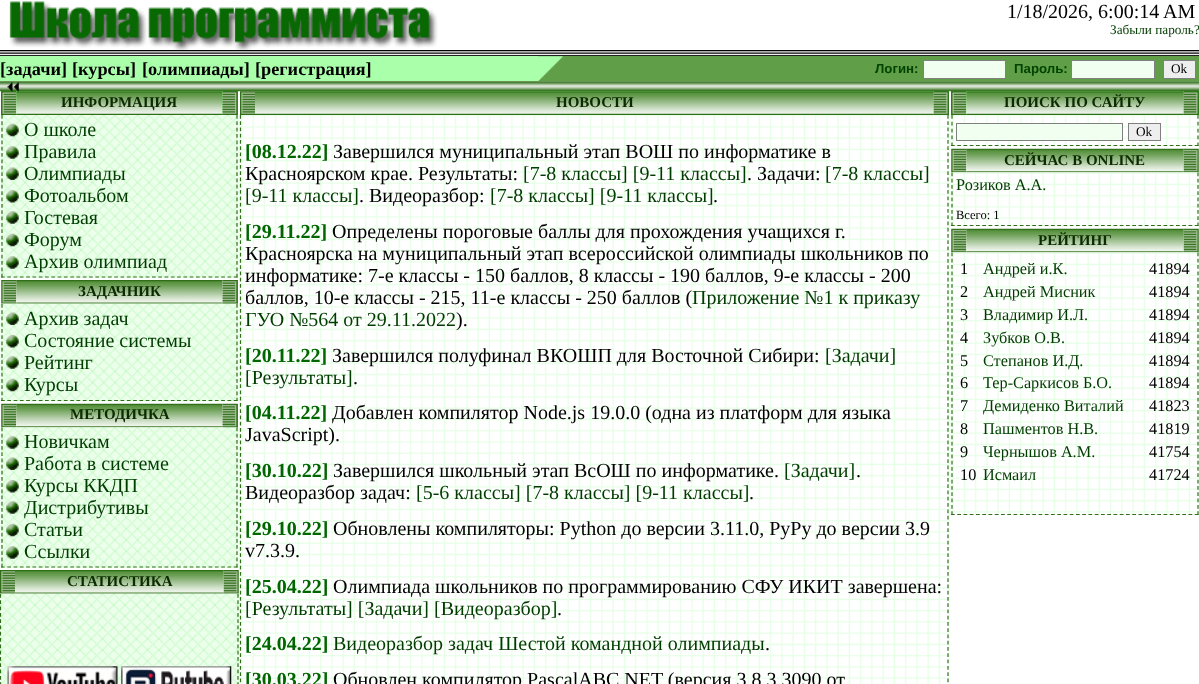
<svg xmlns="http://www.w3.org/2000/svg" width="1199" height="684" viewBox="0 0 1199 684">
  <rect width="100%" height="100%" fill="rgb(255,255,255)"/>
  <image x="9" y="1" width="429" height="49" href="pic1.png"/>
  <text x="1007" y="18" font-family="Liberation Serif" font-size="20" fill="rgb(0,0,0)">1/18/2026, 6:00:14 AM</text>
  <text x="1110" y="34" font-family="Liberation Serif" font-size="13.25" fill="rgb(0,60,0)">Забыли пароль?</text>
  <image x="0" y="50" width="1199" height="6" href="pic2.png"/>
  <rect x="0" y="56" width="538" height="25" fill="rgb(170,255,170)"/>
  <g font-family="Liberation Serif" font-size="18.25" font-weight="bold" fill="rgb(0,0,0)">
    <text x="0" y="75">[задачи]</text>
    <text x="72" y="75">[курсы]</text>
    <text x="142" y="75">[олимпиады]</text>
    <text x="255" y="75">[регистрация]</text>
  </g>
  <rect x="538" y="56" width="661" height="25" fill="rgb(96,158,72)"/>
  <image x="537" y="56" width="26" height="26" href="pic3.png"/>
  <text x="875" y="73" font-family="Liberation Sans" font-size="13.25" font-weight="bold" fill="rgb(0,68,0)">Логин:</text>
  <rect x="923.5" y="60.5" width="82" height="18" fill="rgb(240,255,240)" stroke="rgb(128,128,128)"/>
  <text x="1014" y="73" font-family="Liberation Sans" font-size="13.25" font-weight="bold" fill="rgb(0,68,0)">Пароль:</text>
  <rect x="1071.5" y="60.5" width="83" height="18" fill="rgb(240,255,240)" stroke="rgb(128,128,128)"/>
  <rect x="1163.5" y="60.5" width="32" height="18" fill="rgb(238,238,238)" stroke="rgb(128,128,128)"/>
  <text x="1171" y="73" font-family="Liberation Serif" font-size="13.25" fill="rgb(0,0,0)">Ok</text>
  <image x="0" y="81" width="1199" height="11" href="pic4.png"/>
  <rect x="1" y="91" width="15" height="24" fill="rgb(51,153,51)"/>
  <image x="1" y="91" width="15" height="24" href="pic6.png"/>
  <rect x="16" y="91" width="207" height="24" fill="rgb(136,255,136)"/>
  <image x="16" y="91" width="207" height="24" href="pic7.png"/>
  <image x="7" y="82" width="12" height="10" href="pic5.png"/>
  <text x="61" y="107" font-family="Liberation Serif" font-size="15" font-weight="bold" fill="rgb(13,43,1)">ИНФОРМАЦИЯ</text>
  <rect x="223" y="91" width="15" height="24" fill="rgb(51,153,51)"/>
  <image x="222" y="91" width="16" height="24" href="pic8.png"/>
  <rect x="0" y="115" width="239" height="163" fill="rgb(240,255,240)"/>
  <image x="1" y="115" width="237" height="163" href="pic9.png"/>
  <path d="M237 115V277.5" fill="none" stroke="rgb(48,110,24)" stroke-width="1.2" stroke-dasharray="3.75 2.6"/>
  <path d="M1 277H237.5" fill="none" stroke="rgb(48,110,24)" stroke-width="1.2" stroke-dasharray="3.75 2.54"/>
  <path d="M2 115V277.5" fill="none" stroke="rgb(48,110,24)" stroke-width="1.2" stroke-dasharray="3.75 2.6"/>
  <image x="6" y="123" width="13" height="14" href="pic10.png"/>
  <text x="24" y="136" font-family="Liberation Serif" font-size="20" fill="rgb(0,60,0)">О школе</text>
  <image x="6" y="146" width="13" height="13" href="pic11.png"/>
  <text x="24" y="158" font-family="Liberation Serif" font-size="20" fill="rgb(0,60,0)">Правила</text>
  <image x="6" y="167" width="13" height="13" href="pic12.png"/>
  <text x="24" y="180" font-family="Liberation Serif" font-size="20" fill="rgb(0,60,0)">Олимпиады</text>
  <image x="6" y="190" width="13" height="13" href="pic13.png"/>
  <text x="24" y="202" font-family="Liberation Serif" font-size="20" fill="rgb(0,60,0)">Фотоальбом</text>
  <image x="6" y="211" width="13" height="13" href="pic14.png"/>
  <text x="24" y="224" font-family="Liberation Serif" font-size="20" fill="rgb(0,60,0)">Гостевая</text>
  <image x="6" y="233" width="13" height="14" href="pic15.png"/>
  <text x="24" y="246" font-family="Liberation Serif" font-size="20" fill="rgb(0,60,0)">Форум</text>
  <image x="6" y="256" width="13" height="13" href="pic16.png"/>
  <text x="24" y="268" font-family="Liberation Serif" font-size="20" fill="rgb(0,60,0)">Архив олимпиад</text>
  <image x="1" y="280" width="16" height="24" href="pic17.png"/>
  <image x="16" y="280" width="207" height="24" href="pic18.png"/>
  <text x="78" y="296" font-family="Liberation Serif" font-size="15" font-weight="bold" fill="rgb(13,43,1)">ЗАДАЧНИК</text>
  <rect x="223" y="280" width="15" height="24" fill="rgb(51,153,51)"/>
  <image x="222" y="280" width="16" height="24" href="pic19.png"/>
  <rect x="0" y="304" width="239" height="97" fill="rgb(240,255,240)"/>
  <image x="1" y="303" width="237" height="99" href="pic20.png"/>
  <path d="M237 304V401" fill="none" stroke="rgb(48,110,24)" stroke-width="1.2" stroke-dasharray="3.75 2.5"/>
  <path d="M1 400.5H237.5" fill="none" stroke="rgb(48,110,24)" stroke-width="1.2" stroke-dasharray="3.75 2.54"/>
  <path d="M2 304V401" fill="none" stroke="rgb(48,110,24)" stroke-width="1.2" stroke-dasharray="3.75 2.5"/>
  <image x="6" y="312" width="13" height="13" href="pic21.png"/>
  <text x="24" y="325" font-family="Liberation Serif" font-size="20" fill="rgb(0,60,0)">Архив задач</text>
  <image x="6" y="335" width="13" height="13" href="pic22.png"/>
  <text x="24" y="347" font-family="Liberation Serif" font-size="20" fill="rgb(0,60,0)">Состояние системы</text>
  <image x="6" y="356" width="13" height="13" href="pic23.png"/>
  <text x="24" y="369" font-family="Liberation Serif" font-size="20" fill="rgb(0,60,0)">Рейтинг</text>
  <image x="6" y="378" width="13" height="14" href="pic24.png"/>
  <text x="24" y="391" font-family="Liberation Serif" font-size="20" fill="rgb(0,60,0)">Курсы</text>
  <image x="1" y="403" width="16" height="25" href="pic25.png"/>
  <image x="16" y="403" width="207" height="25" href="pic26.png"/>
  <text x="70" y="419" font-family="Liberation Serif" font-size="15" font-weight="bold" fill="rgb(13,43,1)">МЕТОДИЧКА</text>
  <rect x="223" y="404" width="15" height="24" fill="rgb(51,153,51)"/>
  <image x="222" y="403" width="16" height="25" href="pic27.png"/>
  <rect x="0" y="428" width="239" height="140" fill="rgb(240,255,240)"/>
  <image x="1" y="427" width="237" height="141" href="pic28.png"/>
  <path d="M237 427.5V567.5" fill="none" stroke="rgb(48,110,24)" stroke-width="1.2" stroke-dasharray="3.75 2.44"/>
  <path d="M1 567H237.5" fill="none" stroke="rgb(48,110,24)" stroke-width="1.2" stroke-dasharray="3.75 2.54"/>
  <path d="M2 427.5V567.5" fill="none" stroke="rgb(48,110,24)" stroke-width="1.2" stroke-dasharray="3.75 2.44"/>
  <image x="6" y="436" width="13" height="13" href="pic11.png"/>
  <text x="24" y="448" font-family="Liberation Serif" font-size="20" fill="rgb(0,60,0)">Новичкам</text>
  <image x="6" y="457" width="13" height="13" href="pic12.png"/>
  <text x="24" y="470" font-family="Liberation Serif" font-size="20" fill="rgb(0,60,0)">Работа в системе</text>
  <image x="6" y="480" width="13" height="13" href="pic13.png"/>
  <text x="24" y="492" font-family="Liberation Serif" font-size="20" fill="rgb(0,60,0)">Курсы ККДП</text>
  <image x="6" y="501" width="13" height="13" href="pic14.png"/>
  <text x="24" y="514" font-family="Liberation Serif" font-size="20" fill="rgb(0,60,0)">Дистрибутивы</text>
  <image x="6" y="523" width="13" height="14" href="pic15.png"/>
  <text x="24" y="536" font-family="Liberation Serif" font-size="20" fill="rgb(0,60,0)">Статьи</text>
  <image x="6" y="546" width="13" height="13" href="pic14.png"/>
  <text x="24" y="558" font-family="Liberation Serif" font-size="20" fill="rgb(0,60,0)">Ссылки</text>
  <image x="0" y="570" width="15" height="24" href="pic29.png"/>
  <image x="15" y="570" width="209" height="24" href="pic30.png"/>
  <text x="67" y="586" font-family="Liberation Serif" font-size="15" font-weight="bold" fill="rgb(13,43,1)">СТАТИСТИКА</text>
  <image x="223" y="570" width="16" height="24" href="pic31.png"/>
  <image x="0" y="593" width="239" height="91" href="pic32.png"/>
  <path d="M238 594V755" fill="none" stroke="rgb(48,110,24)" stroke-width="1.2" stroke-dasharray="3.75 2.55"/>
  <path d="M.5 594V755" fill="none" stroke="rgb(48,110,24)" stroke-width="1.2" stroke-dasharray="3.75 2.55"/>
  <image x="7" y="666" width="111" height="18" href="pic33.png"/>
  <image x="121" y="666" width="111" height="18" href="pic34.png"/>
  <image x="240" y="91" width="15" height="24" href="pic35.png"/>
  <rect x="255" y="91" width="679" height="24" fill="rgb(136,255,136)"/>
  <image x="255" y="91" width="679" height="24" href="pic36.png"/>
  <text x="556" y="107" font-family="Liberation Serif" font-size="15" font-weight="bold" fill="rgb(13,43,1)">НОВОСТИ</text>
  <rect x="934" y="91" width="15" height="24" fill="rgb(51,153,51)"/>
  <image x="933" y="91" width="16" height="24" href="pic37.png"/>
  <rect x="239" y="115" width="711" height="569" fill="rgb(240,255,240)"/>
  <image x="240" y="115" width="709" height="569" href="pic38.png"/>
  <path d="M948 115V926" fill="none" stroke="rgb(48,110,24)" stroke-width="1.2" stroke-dasharray="3.75 2.51"/>
  <path d="M240.5 115V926" fill="none" stroke="rgb(48,110,24)" stroke-width="1.2" stroke-dasharray="3.75 2.51"/>
  <text x="245" y="158" font-family="Liberation Serif" font-size="20" font-weight="bold" fill="rgb(0,102,0)">[08.12.22]</text>
  <g font-family="Liberation Serif" font-size="20" fill="rgb(0,0,0)">
    <text x="333" y="158">Завершился муниципальный этап ВОШ по информатике в</text>
    <text x="245" y="180">Красноярском крае. Результаты:</text>
  </g>
  <text x="523" y="180" font-family="Liberation Serif" font-size="20" fill="rgb(0,60,0)">[7-8 классы] [9-11 классы]</text>
  <text x="747" y="180" font-family="Liberation Serif" font-size="20" fill="rgb(0,0,0)">. Задачи:</text>
  <g font-family="Liberation Serif" font-size="20" fill="rgb(0,60,0)">
    <text x="825" y="180">[7-8 классы]</text>
    <text x="245" y="202">[9-11 классы]</text>
  </g>
  <text x="359" y="202" font-family="Liberation Serif" font-size="20" fill="rgb(0,0,0)">. Видеоразбор:</text>
  <text x="490" y="202" font-family="Liberation Serif" font-size="20" fill="rgb(0,60,0)">[7-8 классы] [9-11 классы]</text>
  <text x="713" y="202" font-family="Liberation Serif" font-size="20" fill="rgb(0,0,0)">.</text>
  <text x="245" y="238" font-family="Liberation Serif" font-size="20" font-weight="bold" fill="rgb(0,102,0)">[29.11.22]</text>
  <g font-family="Liberation Serif" font-size="20" fill="rgb(0,0,0)">
    <text x="332" y="238">Определены пороговые баллы для прохождения учащихся г.</text>
    <text>
      <tspan x="245" y="260">Красноярска на муниципальный этап всероссийской олимпиады школьников по</tspan>
      <tspan x="245" y="282">информатике: 7-е классы - 150 баллов, 8 классы - 190 баллов, 9-е классы - 200</tspan>
      <tspan x="245" y="304">баллов, 10-е классы - 215, 11-е классы - 250 баллов (</tspan>
    </text>
  </g>
  <g font-family="Liberation Serif" font-size="20" fill="rgb(0,60,0)">
    <text x="692" y="304">Приложение №1 к приказу</text>
    <text x="245" y="326">ГУО №564 от 29.11.2022</text>
  </g>
  <text x="456" y="326" font-family="Liberation Serif" font-size="20" fill="rgb(0,0,0)">).</text>
  <text x="245" y="362" font-family="Liberation Serif" font-size="20" font-weight="bold" fill="rgb(0,102,0)">[20.11.22]</text>
  <text x="332" y="362" font-family="Liberation Serif" font-size="20" fill="rgb(0,0,0)">Завершился полуфинал ВКОШП для Восточной Сибири:</text>
  <g font-family="Liberation Serif" font-size="20" fill="rgb(0,60,0)">
    <text x="825" y="362">[Задачи]</text>
    <text x="245" y="384">[Результаты]</text>
  </g>
  <text x="353" y="384" font-family="Liberation Serif" font-size="20" fill="rgb(0,0,0)">.</text>
  <text x="245" y="419" font-family="Liberation Serif" font-size="20" font-weight="bold" fill="rgb(0,102,0)">[04.11.22]</text>
  <g font-family="Liberation Serif" font-size="20" fill="rgb(0,0,0)">
    <text x="332" y="419">Добавлен компилятор Node.js 19.0.0 (одна из платформ для языка</text>
    <text x="245" y="441">JavaScript).</text>
  </g>
  <text x="245" y="477" font-family="Liberation Serif" font-size="20" font-weight="bold" fill="rgb(0,102,0)">[30.10.22]</text>
  <text x="333" y="477" font-family="Liberation Serif" font-size="20" fill="rgb(0,0,0)">Завершился школьный этап ВсОШ по информатике.</text>
  <text x="784" y="477" font-family="Liberation Serif" font-size="20" fill="rgb(0,60,0)">[Задачи]</text>
  <g font-family="Liberation Serif" font-size="20" fill="rgb(0,0,0)">
    <text x="856" y="477">.</text>
    <text x="245" y="499">Видеоразбор задач:</text>
  </g>
  <text x="416" y="499" font-family="Liberation Serif" font-size="20" fill="rgb(0,60,0)">[5-6 классы] [7-8 классы] [9-11 классы]</text>
  <text x="749" y="499" font-family="Liberation Serif" font-size="20" fill="rgb(0,0,0)">.</text>
  <text x="245" y="535" font-family="Liberation Serif" font-size="20" font-weight="bold" fill="rgb(0,102,0)">[29.10.22]</text>
  <g font-family="Liberation Serif" font-size="20" fill="rgb(0,0,0)">
    <text x="333" y="535">Обновлены компиляторы: Python до версии 3.11.0, PyPy до версии 3.9</text>
    <text x="245" y="557">v7.3.9.</text>
  </g>
  <text x="245" y="593" font-family="Liberation Serif" font-size="20" font-weight="bold" fill="rgb(0,102,0)">[25.04.22]</text>
  <text x="333" y="593" font-family="Liberation Serif" font-size="20" fill="rgb(0,0,0)">Олимпиада школьников по программированию СФУ ИКИТ завершена:</text>
  <text x="245" y="615" font-family="Liberation Serif" font-size="20" fill="rgb(0,60,0)">[Результаты] [Задачи] [Видеоразбор]</text>
  <text x="557" y="615" font-family="Liberation Serif" font-size="20" fill="rgb(0,0,0)">.</text>
  <text x="245" y="650" font-family="Liberation Serif" font-size="20" font-weight="bold" fill="rgb(0,102,0)">[24.04.22]</text>
  <text x="333" y="650" font-family="Liberation Serif" font-size="20" fill="rgb(0,60,0)">Видеоразбор задач Шестой командной олимпиады</text>
  <text x="765" y="650" font-family="Liberation Serif" font-size="20" fill="rgb(0,0,0)">.</text>
  <text x="245" y="686" font-family="Liberation Serif" font-size="20" font-weight="bold" fill="rgb(0,102,0)">[30.03.22]</text>
  <text x="333" y="686" font-family="Liberation Serif" font-size="20" fill="rgb(0,0,0)">Обновлен компилятор PascalABC.NET (версия 3.8.3.3090 от</text>
  <rect x="951" y="91" width="15" height="24" fill="rgb(51,153,51)"/>
  <image x="951" y="91" width="15" height="24" href="pic6.png"/>
  <rect x="966" y="91" width="218" height="24" fill="rgb(136,255,136)"/>
  <image x="966" y="91" width="218" height="24" href="pic39.png"/>
  <text x="1004" y="107" font-family="Liberation Serif" font-size="15" font-weight="bold" fill="rgb(13,43,1)">ПОИСК ПО САЙТУ</text>
  <rect x="1184" y="91" width="15" height="24" fill="rgb(51,153,51)"/>
  <image x="1183" y="91" width="16" height="24" href="pic40.png"/>
  <rect x="950" y="115" width="249" height="31" fill="rgb(240,255,240)"/>
  <image x="951" y="115" width="248" height="32" href="pic41.png"/>
  <path d="M1198 115V146" fill="none" stroke="rgb(48,110,24)" stroke-width="1.2" stroke-dasharray="3.75 3.12"/>
  <path d="M951 145.5H1199" fill="none" stroke="rgb(48,110,24)" stroke-width="1.2" stroke-dasharray="3.75 2.5"/>
  <path d="M952 115V146" fill="none" stroke="rgb(48,110,24)" stroke-width="1.2" stroke-dasharray="3.75 3.12"/>
  <rect x="956.5" y="123.5" width="166" height="17" fill="rgb(240,255,240)" stroke="rgb(128,128,128)"/>
  <rect x="1128.5" y="123.5" width="32" height="17" fill="rgb(238,238,238)" stroke="rgb(128,128,128)"/>
  <text x="1136" y="136" font-family="Liberation Serif" font-size="13.25" fill="rgb(0,0,0)">Ok</text>
  <image x="951" y="148" width="16" height="25" href="pic25.png"/>
  <image x="966" y="148" width="218" height="25" href="pic42.png"/>
  <text x="1004" y="165" font-family="Liberation Serif" font-size="15" font-weight="bold" fill="rgb(13,43,1)">СЕЙЧАС В ONLINE</text>
  <image x="1183" y="148" width="16" height="25" href="pic43.png"/>
  <rect x="950" y="173" width="249" height="53" fill="rgb(240,255,240)"/>
  <image x="951" y="172" width="248" height="55" href="pic44.png"/>
  <path d="M1198 172.5V226" fill="none" stroke="rgb(48,110,24)" stroke-width="1.2" stroke-dasharray="3.75 2.5"/>
  <path d="M951 225.5H1199" fill="none" stroke="rgb(48,110,24)" stroke-width="1.2" stroke-dasharray="3.75 2.5"/>
  <path d="M952 172.5V226" fill="none" stroke="rgb(48,110,24)" stroke-width="1.2" stroke-dasharray="3.75 2.5"/>
  <text x="956" y="190" font-family="Liberation Serif" font-size="16.25" fill="rgb(0,60,0)">Розиков А.А.</text>
  <text x="956" y="219" font-family="Liberation Serif" font-size="12.5" fill="rgb(0,0,0)">Всего: 1</text>
  <image x="951" y="228" width="16" height="25" href="pic25.png"/>
  <image x="966" y="228" width="218" height="25" href="pic42.png"/>
  <text x="1038" y="245" font-family="Liberation Serif" font-size="15" font-weight="bold" fill="rgb(13,43,1)">РЕЙТИНГ</text>
  <image x="1183" y="228" width="16" height="25" href="pic43.png"/>
  <rect x="950" y="253" width="249" height="262" fill="rgb(240,255,240)"/>
  <image x="951" y="252" width="248" height="263" href="pic45.png"/>
  <path d="M1198 252.5V515" fill="none" stroke="rgb(48,110,24)" stroke-width="1.2" stroke-dasharray="3.75 2.56"/>
  <path d="M951 514.5H1199" fill="none" stroke="rgb(48,110,24)" stroke-width="1.2" stroke-dasharray="3.75 2.5"/>
  <path d="M952 252.5V515" fill="none" stroke="rgb(48,110,24)" stroke-width="1.2" stroke-dasharray="3.75 2.56"/>
  <text x="960" y="274" font-family="Liberation Serif" font-size="16.25" fill="rgb(0,0,0)">1</text>
  <text x="983" y="274" font-family="Liberation Serif" font-size="16.25" fill="rgb(0,60,0)">Андрей и.К.</text>
  <g font-family="Liberation Serif" font-size="16.25" fill="rgb(0,0,0)">
    <text x="1149" y="274">41894</text>
    <text x="960" y="297">2</text>
  </g>
  <text x="983" y="297" font-family="Liberation Serif" font-size="16.25" fill="rgb(0,60,0)">Андрей Мисник</text>
  <g font-family="Liberation Serif" font-size="16.25" fill="rgb(0,0,0)">
    <text x="1149" y="297">41894</text>
    <text x="960" y="320">3</text>
  </g>
  <text x="983" y="320" font-family="Liberation Serif" font-size="16.25" fill="rgb(0,60,0)">Владимир И.Л.</text>
  <g font-family="Liberation Serif" font-size="16.25" fill="rgb(0,0,0)">
    <text x="1149" y="320">41894</text>
    <text x="960" y="343">4</text>
  </g>
  <text x="983" y="343" font-family="Liberation Serif" font-size="16.25" fill="rgb(0,60,0)">Зубков О.В.</text>
  <g font-family="Liberation Serif" font-size="16.25" fill="rgb(0,0,0)">
    <text x="1149" y="343">41894</text>
    <text x="960" y="366">5</text>
  </g>
  <text x="983" y="366" font-family="Liberation Serif" font-size="16.25" fill="rgb(0,60,0)">Степанов И.Д.</text>
  <g font-family="Liberation Serif" font-size="16.25" fill="rgb(0,0,0)">
    <text x="1149" y="366">41894</text>
    <text x="960" y="388">6</text>
  </g>
  <text x="983" y="388" font-family="Liberation Serif" font-size="16.25" fill="rgb(0,60,0)">Тер-Саркисов Б.О.</text>
  <g font-family="Liberation Serif" font-size="16.25" fill="rgb(0,0,0)">
    <text x="1149" y="388">41894</text>
    <text x="960" y="411">7</text>
  </g>
  <text x="983" y="411" font-family="Liberation Serif" font-size="16.25" fill="rgb(0,60,0)">Демиденко Виталий</text>
  <g font-family="Liberation Serif" font-size="16.25" fill="rgb(0,0,0)">
    <text x="1149" y="411">41823</text>
    <text x="960" y="434">8</text>
  </g>
  <text x="983" y="434" font-family="Liberation Serif" font-size="16.25" fill="rgb(0,60,0)">Пашментов Н.В.</text>
  <g font-family="Liberation Serif" font-size="16.25" fill="rgb(0,0,0)">
    <text x="1149" y="434">41819</text>
    <text x="960" y="457">9</text>
  </g>
  <text x="983" y="457" font-family="Liberation Serif" font-size="16.25" fill="rgb(0,60,0)">Чернышов А.М.</text>
  <g font-family="Liberation Serif" font-size="16.25" fill="rgb(0,0,0)">
    <text x="1149" y="457">41754</text>
    <text x="960" y="480">10</text>
  </g>
  <text x="983" y="480" font-family="Liberation Serif" font-size="16.25" fill="rgb(0,60,0)">Исмаил</text>
  <text x="1149" y="480" font-family="Liberation Serif" font-size="16.25" fill="rgb(0,0,0)">41724</text>
</svg>
